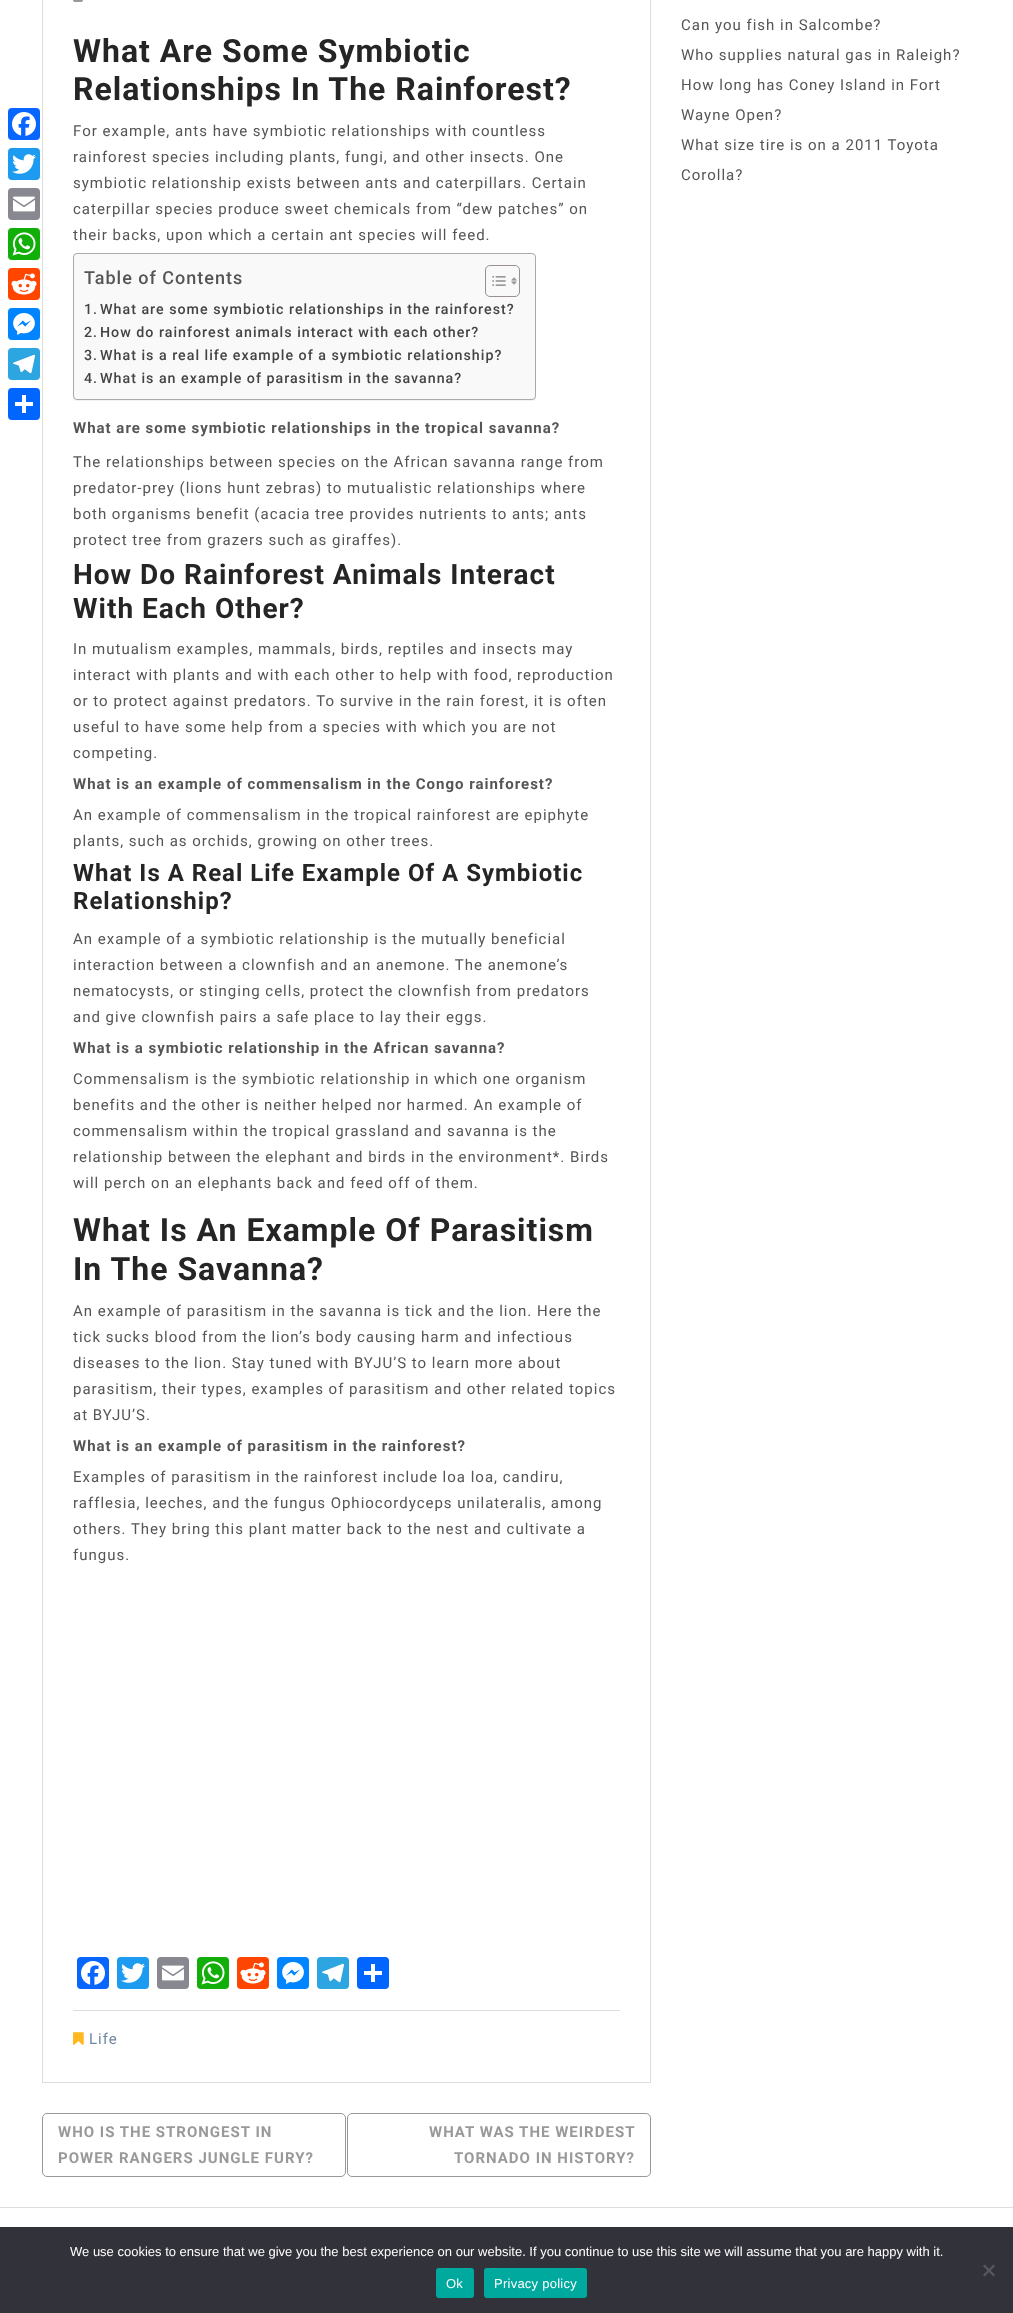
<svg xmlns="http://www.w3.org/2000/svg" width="1013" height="2313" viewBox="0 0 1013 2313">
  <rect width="100%" height="100%" fill="rgb(255,255,255)"/>
  <rect x="8" y="108" width="32" height="32" rx="4" fill="rgb(8,102,255)"/>
  <image x="12" y="112" width="24" height="24" href="pic1.png"/>
  <rect x="8" y="148" width="32" height="32" rx="4" fill="rgb(29,155,240)"/>
  <image x="12" y="154" width="24" height="20" href="pic2.png"/>
  <rect x="8" y="188" width="32" height="32" rx="4" fill="rgb(136,137,144)"/>
  <image x="13" y="196" width="22" height="16" href="pic3.png"/>
  <rect x="8" y="228" width="32" height="32" rx="4" fill="rgb(18,175,10)"/>
  <image x="12" y="232" width="24" height="24" href="pic4.png"/>
  <rect x="8" y="268" width="32" height="32" rx="4" fill="rgb(255,69,0)"/>
  <image x="11" y="273" width="26" height="22" href="pic5.png"/>
  <rect x="8" y="308" width="32" height="32" rx="4" fill="rgb(0,132,255)"/>
  <image x="13" y="313" width="22" height="22" href="pic6.png"/>
  <rect x="8" y="348" width="32" height="32" rx="4" fill="rgb(44,165,224)"/>
  <image x="13" y="354" width="22" height="20" href="pic7.png"/>
  <rect x="8" y="388" width="32" height="32" rx="4" fill="rgb(1,102,255)"/>
  <rect x="22" y="395" width="4" height="18" fill="rgb(255,255,255)"/>
  <rect x="15" y="402" width="18" height="4" fill="rgb(255,255,255)"/>
  <rect x="42.5" y="-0.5" width="608" height="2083" fill="none" stroke="rgb(221,221,221)"/>
  <image x="73" y="0" width="10" height="2" href="pic8.png"/>
  <g font-family="Roboto" font-size="32" font-weight="bold" letter-spacing="1" fill="rgb(37,37,37)">
    <text>
      <tspan x="73" y="62">What Are Some Symbiotic</tspan>
      <tspan x="73" y="100">Relationships In The Rainforest?</tspan>
    </text>
  </g>
  <g font-family="Roboto" font-size="15" letter-spacing="1" fill="rgb(85,85,85)">
    <text>
      <tspan x="73" y="136">For example, ants have symbiotic relationships with countless</tspan>
      <tspan x="73" y="162">rainforest species including plants, fungi, and other insects. One</tspan>
      <tspan x="73" y="188">symbiotic relationship exists between ants and caterpillars. Certain</tspan>
      <tspan x="73" y="214">caterpillar species produce sweet chemicals from “dew patches” on</tspan>
      <tspan x="73" y="240">their backs, upon which a certain ant species will feed.</tspan>
    </text>
  </g>
  <rect x="73" y="254" width="463" height="147" rx="4" fill="rgba(0,0,0,0.05)" filter="blur(0.5px)"/>
  <rect x="73.5" y="253.5" width="462" height="146" rx="3.5" fill="rgb(249,249,249)" stroke="rgb(170,170,170)"/>
  <text x="84" y="284" font-family="Roboto" font-size="18" font-weight="500" letter-spacing="1" fill="rgb(85,85,85)">Table of Contents</text>
  <rect x="485.5" y="265.5" width="34" height="31" rx="4.5" fill="none" stroke="rgb(153,145,145)"/>
  <image x="492" y="276" width="14" height="10" href="pic9.png"/>
  <image x="511" y="277" width="6" height="8" href="pic10.png"/>
  <g font-family="Roboto" font-size="14.25" font-weight="500" letter-spacing="1" fill="rgb(68,68,68)">
    <text x="84" y="314">1.</text>
    <text x="100" y="314">What are some symbiotic relationships in the rainforest?</text>
    <text x="84" y="337">2.</text>
    <text x="100" y="337">How do rainforest animals interact with each other?</text>
    <text x="84" y="360">3.</text>
    <text x="100" y="360">What is a real life example of a symbiotic relationship?</text>
    <text x="84" y="383">4.</text>
    <text x="100" y="383">What is an example of parasitism in the savanna?</text>
  </g>
  <text x="73" y="433" font-family="Roboto" font-size="15" font-weight="bold" letter-spacing="1" fill="rgb(85,85,85)">What are some symbiotic relationships in the tropical savanna?</text>
  <g font-family="Roboto" font-size="15" letter-spacing="1" fill="rgb(85,85,85)">
    <text>
      <tspan x="73" y="467">The relationships between species on the African savanna range from</tspan>
      <tspan x="73" y="493">predator-prey (lions hunt zebras) to mutualistic relationships where</tspan>
      <tspan x="73" y="519">both organisms benefit (acacia tree provides nutrients to ants; ants</tspan>
      <tspan x="73" y="545">protect tree from grazers such as giraffes).</tspan>
    </text>
  </g>
  <g font-family="Roboto" font-size="28" font-weight="bold" letter-spacing="1" fill="rgb(37,37,37)">
    <text>
      <tspan x="73" y="584">How Do Rainforest Animals Interact</tspan>
      <tspan x="73" y="618">With Each Other?</tspan>
    </text>
  </g>
  <g font-family="Roboto" font-size="15" letter-spacing="1" fill="rgb(85,85,85)">
    <text>
      <tspan x="73" y="654">In mutualism examples, mammals, birds, reptiles and insects may</tspan>
      <tspan x="73" y="680">interact with plants and with each other to help with food, reproduction</tspan>
      <tspan x="73" y="706">or to protect against predators. To survive in the rain forest, it is often</tspan>
      <tspan x="73" y="732">useful to have some help from a species with which you are not</tspan>
      <tspan x="73" y="758">competing.</tspan>
    </text>
  </g>
  <text x="73" y="789" font-family="Roboto" font-size="15" font-weight="bold" letter-spacing="1" fill="rgb(85,85,85)">What is an example of commensalism in the Congo rainforest?</text>
  <g font-family="Roboto" font-size="15" letter-spacing="1" fill="rgb(85,85,85)">
    <text>
      <tspan x="73" y="820">An example of commensalism in the tropical rainforest are epiphyte</tspan>
      <tspan x="73" y="846">plants, such as orchids, growing on other trees.</tspan>
    </text>
  </g>
  <g font-family="Roboto" font-size="24" font-weight="bold" letter-spacing="1" fill="rgb(37,37,37)">
    <text>
      <tspan x="73" y="881">What Is A Real Life Example Of A Symbiotic</tspan>
      <tspan x="73" y="909">Relationship?</tspan>
    </text>
  </g>
  <g font-family="Roboto" font-size="15" letter-spacing="1" fill="rgb(85,85,85)">
    <text>
      <tspan x="73" y="944">An example of a symbiotic relationship is the mutually beneficial</tspan>
      <tspan x="73" y="970">interaction between a clownfish and an anemone. The anemone’s</tspan>
      <tspan x="73" y="996">nematocysts, or stinging cells, protect the clownfish from predators</tspan>
      <tspan x="73" y="1022">and give clownfish pairs a safe place to lay their eggs.</tspan>
    </text>
  </g>
  <text x="73" y="1053" font-family="Roboto" font-size="15" font-weight="bold" letter-spacing="1" fill="rgb(85,85,85)">What is a symbiotic relationship in the African savanna?</text>
  <g font-family="Roboto" font-size="15" letter-spacing="1" fill="rgb(85,85,85)">
    <text>
      <tspan x="73" y="1084">Commensalism is the symbiotic relationship in which one organism</tspan>
      <tspan x="73" y="1110">benefits and the other is neither helped nor harmed. An example of</tspan>
      <tspan x="73" y="1136">commensalism within the tropical grassland and savanna is the</tspan>
      <tspan x="73" y="1162">relationship between the elephant and birds in the environment*. Birds</tspan>
      <tspan x="73" y="1188">will perch on an elephants back and feed off of them.</tspan>
    </text>
  </g>
  <g font-family="Roboto" font-size="32" font-weight="bold" letter-spacing="1" fill="rgb(37,37,37)">
    <text>
      <tspan x="73" y="1241">What Is An Example Of Parasitism</tspan>
      <tspan x="73" y="1280">In The Savanna?</tspan>
    </text>
  </g>
  <g font-family="Roboto" font-size="15" letter-spacing="1" fill="rgb(85,85,85)">
    <text>
      <tspan x="73" y="1316">An example of parasitism in the savanna is tick and the lion. Here the</tspan>
      <tspan x="73" y="1342">tick sucks blood from the lion’s body causing harm and infectious</tspan>
      <tspan x="73" y="1368">diseases to the lion. Stay tuned with BYJU’S to learn more about</tspan>
      <tspan x="73" y="1394">parasitism, their types, examples of parasitism and other related topics</tspan>
      <tspan x="73" y="1420">at BYJU’S.</tspan>
    </text>
  </g>
  <text x="73" y="1451" font-family="Roboto" font-size="15" font-weight="bold" letter-spacing="1" fill="rgb(85,85,85)">What is an example of parasitism in the rainforest?</text>
  <g font-family="Roboto" font-size="15" letter-spacing="1" fill="rgb(85,85,85)">
    <text>
      <tspan x="73" y="1482">Examples of parasitism in the rainforest include loa loa, candiru,</tspan>
      <tspan x="73" y="1508">rafflesia, leeches, and the fungus Ophiocordyceps unilateralis, among</tspan>
      <tspan x="73" y="1534">others. They bring this plant matter back to the nest and cultivate a</tspan>
      <tspan x="73" y="1560">fungus.</tspan>
    </text>
  </g>
  <rect x="77" y="1957" width="32" height="32" rx="4" fill="rgb(8,102,255)"/>
  <image x="81" y="1961" width="24" height="24" href="pic1.png"/>
  <rect x="117" y="1957" width="32" height="32" rx="4" fill="rgb(29,155,240)"/>
  <image x="121" y="1963" width="24" height="20" href="pic2.png"/>
  <rect x="157" y="1957" width="32" height="32" rx="4" fill="rgb(136,137,144)"/>
  <image x="162" y="1965" width="22" height="16" href="pic3.png"/>
  <rect x="197" y="1957" width="32" height="32" rx="4" fill="rgb(18,175,10)"/>
  <image x="201" y="1961" width="24" height="24" href="pic4.png"/>
  <rect x="237" y="1957" width="32" height="32" rx="4" fill="rgb(255,69,0)"/>
  <image x="240" y="1962" width="26" height="22" href="pic5.png"/>
  <rect x="277" y="1957" width="32" height="32" rx="4" fill="rgb(0,132,255)"/>
  <image x="282" y="1962" width="22" height="22" href="pic6.png"/>
  <rect x="317" y="1957" width="32" height="32" rx="4" fill="rgb(44,165,224)"/>
  <image x="322" y="1963" width="22" height="20" href="pic7.png"/>
  <rect x="357" y="1957" width="32" height="32" rx="4" fill="rgb(1,102,255)"/>
  <rect x="371" y="1964" width="4" height="18" fill="rgb(255,255,255)"/>
  <rect x="364" y="1971" width="18" height="4" fill="rgb(255,255,255)"/>
  <rect x="73" y="2010" width="547" height="1" fill="rgb(221,221,221)"/>
  <image x="73" y="2032" width="11" height="13" href="pic11.png"/>
  <text x="89" y="2044" font-family="Roboto" font-size="15" letter-spacing="1" fill="rgb(112,134,161)">Life</text>
  <rect x="42.5" y="2113.5" width="303" height="63" rx="4.5" fill="none" stroke="rgb(153,153,153)"/>
  <g font-family="Roboto" font-size="15" font-weight="bold" letter-spacing="1" fill="rgb(153,153,153)">
    <text>
      <tspan x="58" y="2137">WHO IS THE STRONGEST IN</tspan>
      <tspan x="58" y="2163">POWER RANGERS JUNGLE FURY?</tspan>
    </text>
  </g>
  <rect x="347.5" y="2113.5" width="303" height="63" rx="4.5" fill="none" stroke="rgb(153,153,153)"/>
  <g font-family="Roboto" font-size="15" font-weight="bold" letter-spacing="1" fill="rgb(153,153,153)">
    <text x="429" y="2137">WHAT WAS THE WEIRDEST</text>
    <text x="454" y="2163">TORNADO IN HISTORY?</text>
  </g>
  <g font-family="Roboto" font-size="15" letter-spacing="1" fill="rgb(85,85,85)">
    <text x="681" y="30">Can you fish in Salcombe?</text>
    <text x="681" y="60">Who supplies natural gas in Raleigh?</text>
    <text x="681" y="90">How long has Coney Island in Fort</text>
    <text x="681" y="120">Wayne Open?</text>
    <text x="681" y="150">What size tire is on a 2011 Toyota</text>
    <text x="681" y="180">Corolla?</text>
  </g>
  <rect x="0" y="2207" width="1013" height="1" fill="rgb(221,221,221)"/>
  <rect x="0" y="2227" width="1013" height="86" fill="rgb(50,50,58)"/>
  <text x="70" y="2256" font-family="Liberation Sans" font-size="13" fill="rgb(255,255,255)">We use cookies to ensure that we give you the best experience on our website. If you continue to use this site we will assume that you are happy with it.</text>
  <path d="M993.5 2264.5L995 2266L984.5 2276.5L983 2275Z" fill="rgb(89,89,93)"/>
  <path d="M983 2266L984.5 2264.5L995 2275L993.5 2276.5Z" fill="rgb(89,89,93)"/>
  <rect x="436" y="2268" width="38" height="30" rx="3" fill="rgb(0,169,157)"/>
  <text x="446" y="2288" font-family="Liberation Sans" font-size="13" letter-spacing="0.25" fill="rgb(255,255,255)">Ok</text>
  <rect x="484" y="2268" width="103" height="30" rx="3" fill="rgb(0,169,157)"/>
  <text x="494" y="2288" font-family="Liberation Sans" font-size="13" letter-spacing="0.25" fill="rgb(255,255,255)">Privacy policy</text>
</svg>
